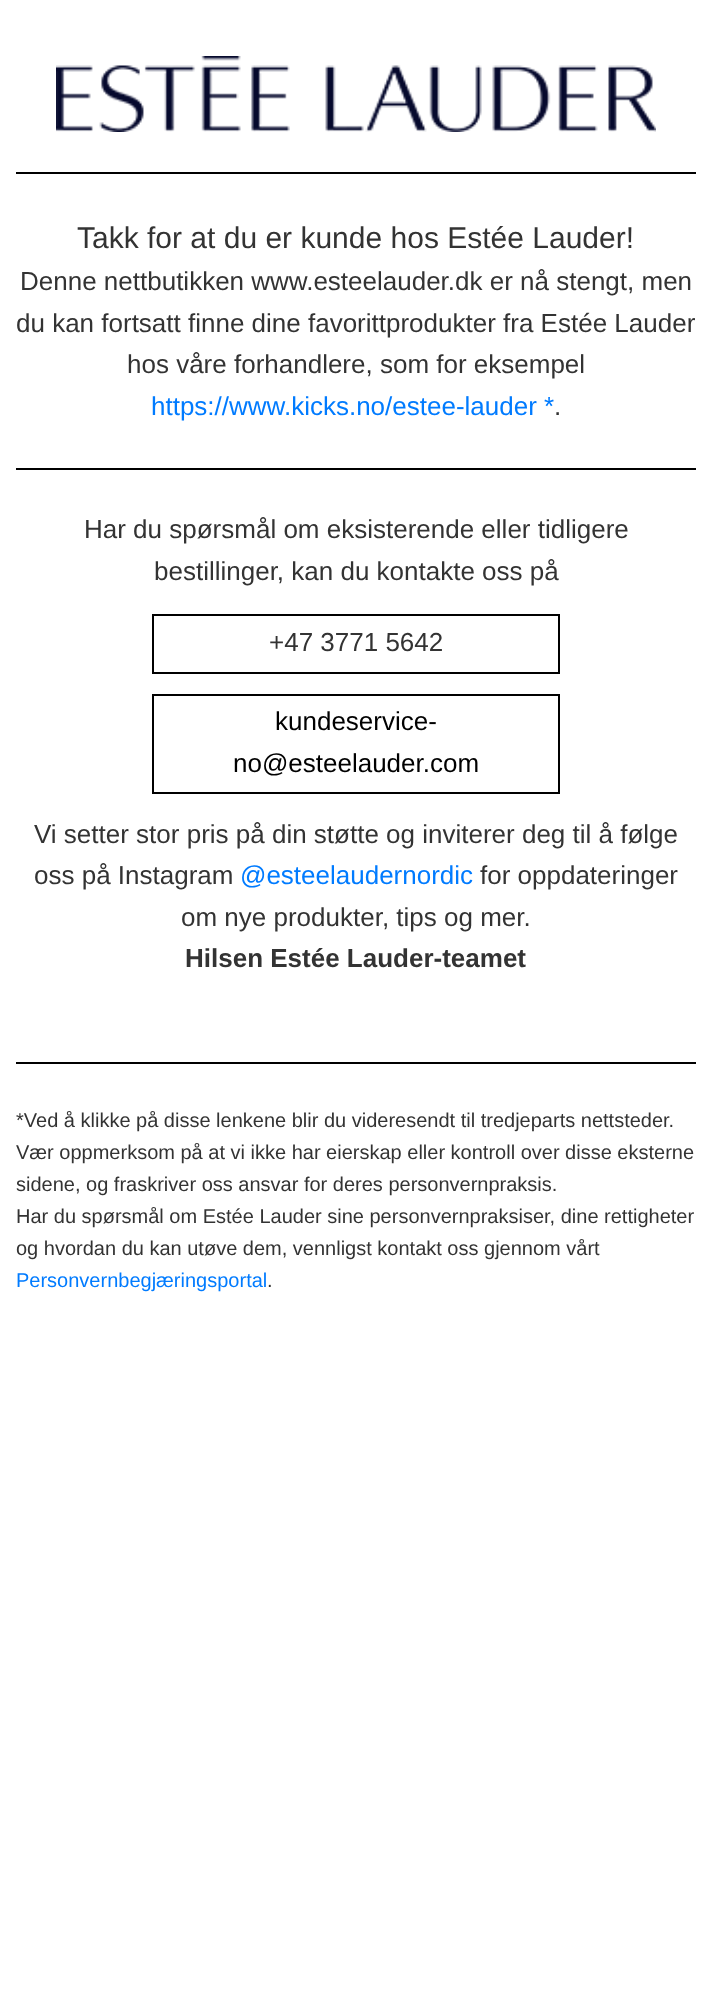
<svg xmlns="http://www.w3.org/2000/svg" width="712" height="1996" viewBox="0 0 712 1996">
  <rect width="100%" height="100%" fill="rgb(255,255,255)"/>
  <rect x="16" y="172" width="680" height="2" fill="rgb(0,0,0)"/>
  <image x="56" y="56" width="600" height="76" href="pic1.png"/>
  <rect x="16" y="468" width="680" height="2" fill="rgb(0,0,0)"/>
  <text x="77" y="248" font-family="Liberation Sans" font-size="30" fill="rgb(51,51,51)">Takk for at du er kunde hos Estée Lauder!</text>
  <g font-family="Liberation Sans" font-size="26" fill="rgb(51,51,51)">
    <text x="20" y="290">Denne nettbutikken www.esteelauder.dk er nå stengt, men</text>
    <text x="16" y="332">du kan fortsatt finne dine favorittprodukter fra Estée Lauder</text>
    <text x="127" y="373">hos våre forhandlere, som for eksempel</text>
  </g>
  <text x="151" y="415" font-family="Liberation Sans" font-size="26" fill="rgb(0,123,255)">https://www.kicks.no/estee-lauder *</text>
  <text x="554" y="415" font-family="Liberation Sans" font-size="26" fill="rgb(51,51,51)">.</text>
  <rect x="16" y="1062" width="680" height="2" fill="rgb(0,0,0)"/>
  <g font-family="Liberation Sans" font-size="26" fill="rgb(51,51,51)">
    <text x="84" y="538">Har du spørsmål om eksisterende eller tidligere</text>
    <text x="154" y="580">bestillinger, kan du kontakte oss på</text>
  </g>
  <rect x="153" y="615" width="406" height="58" fill="none" stroke="rgb(0,0,0)" stroke-width="2"/>
  <text x="269" y="651" font-family="Liberation Sans" font-size="26" fill="rgb(51,51,51)">+47 3771 5642</text>
  <rect x="153" y="695" width="406" height="98" fill="none" stroke="rgb(0,0,0)" stroke-width="2"/>
  <g font-family="Liberation Sans" font-size="26" fill="rgb(0,0,0)">
    <text x="275" y="730">kundeservice-</text>
    <text x="233" y="772">no@esteelauder.com</text>
  </g>
  <g font-family="Liberation Sans" font-size="26" fill="rgb(51,51,51)">
    <text>
      <tspan x="34" y="843">Vi setter stor pris på din støtte og inviterer deg til å følge</tspan>
      <tspan x="34" y="884">oss på Instagram</tspan>
    </text>
  </g>
  <text x="240" y="884" font-family="Liberation Sans" font-size="26" fill="rgb(0,123,255)">@esteelaudernordic</text>
  <g font-family="Liberation Sans" font-size="26" fill="rgb(51,51,51)">
    <text x="480" y="884">for oppdateringer</text>
    <text x="181" y="926">om nye produkter, tips og mer.</text>
  </g>
  <text x="185" y="967" font-family="Liberation Sans" font-size="26" font-weight="bold" fill="rgb(51,51,51)">Hilsen Estée Lauder-teamet</text>
  <g font-family="Liberation Sans" font-size="20" fill="rgb(51,51,51)">
    <text>
      <tspan x="16" y="1127">*Ved å klikke på disse lenkene blir du videresendt til tredjeparts nettsteder.</tspan>
      <tspan x="16" y="1159">Vær oppmerksom på at vi ikke har eierskap eller kontroll over disse eksterne</tspan>
      <tspan x="16" y="1191">sidene, og fraskriver oss ansvar for deres personvernpraksis.</tspan>
      <tspan x="16" y="1223">Har du spørsmål om Estée Lauder sine personvernpraksiser, dine rettigheter</tspan>
      <tspan x="16" y="1255">og hvordan du kan utøve dem, vennligst kontakt oss gjennom vårt</tspan>
    </text>
  </g>
  <text x="16" y="1287" font-family="Liberation Sans" font-size="20" fill="rgb(0,123,255)">Personvernbegjæringsportal</text>
  <text x="267" y="1287" font-family="Liberation Sans" font-size="20" fill="rgb(51,51,51)">.</text>
</svg>
